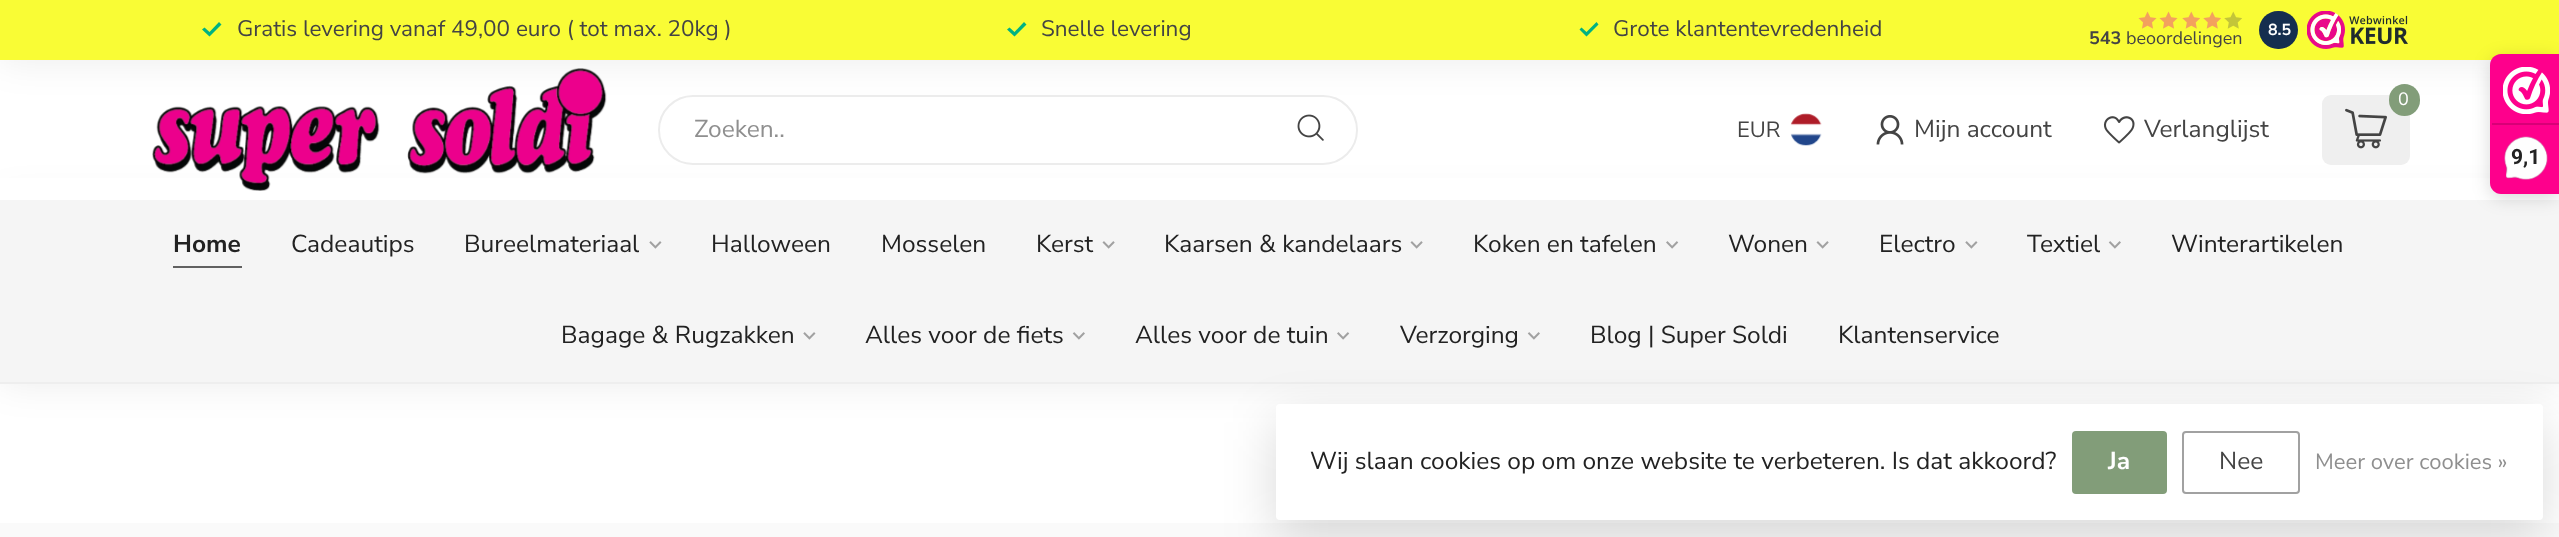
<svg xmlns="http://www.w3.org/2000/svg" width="2559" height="537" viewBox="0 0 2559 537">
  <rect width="100%" height="100%" fill="rgb(255,255,255)"/>
  <rect x="0" y="200" width="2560" height="183" fill="rgba(0,0,0,0.08)" filter="blur(19px)"/>
  <rect x="0" y="178" width="2559" height="22" fill="rgb(255,255,255)"/>
  <rect x="0" y="0" width="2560" height="60" fill="rgba(0,0,0,0.08)" filter="blur(19px)"/>
  <rect x="0" y="0" width="2559" height="60" fill="rgb(249,252,53)"/>
  <path d="M209.5 36.5L202 29.5L204.5 27.5L209.5 32L219 22L221.5 24.5Z" fill="rgb(0,178,130)"/>
  <text x="237" y="36" font-family="Nunito Sans" font-size="22.5" fill="rgb(68,68,68)">Gratis levering vanaf 49,00 euro ( tot max. 20kg )</text>
  <path d="M1014.5 36.5L1007 29.5L1009.5 27.5L1014.5 32L1024 22L1026.5 24.5Z" fill="rgb(0,178,130)"/>
  <text x="1041" y="36" font-family="Nunito Sans" font-size="22.5" fill="rgb(68,68,68)">Snelle levering</text>
  <path d="M1586.5 36.5L1579.5 29.5L1581.5 27.5L1586.5 32L1596.5 22L1598.5 24.5Z" fill="rgb(0,178,130)"/>
  <text x="1613" y="36" font-family="Nunito Sans" font-size="22.5" fill="rgb(68,68,68)">Grote klantentevredenheid</text>
  <rect x="2259" y="11" width="39" height="38" rx="19" fill="rgb(21,46,79)"/>
  <text x="2268" y="35" font-family="Nunito Sans" font-size="16" font-weight="bold" fill="rgb(255,255,255)">8.5</text>
  <image x="2138" y="11" width="19" height="18" href="pic1.png"/>
  <image x="2159" y="11" width="19" height="18" href="pic1.png"/>
  <image x="2182" y="11" width="18" height="18" href="pic2.png"/>
  <image x="2203" y="11" width="18" height="18" href="pic2.png"/>
  <image x="2224" y="11" width="18" height="18" href="pic3.png"/>
  <text x="2089" y="44" font-family="Nunito Sans" font-size="18" font-weight="bold" fill="rgb(68,68,68)">543</text>
  <text x="2126" y="44" font-family="Nunito Sans" font-size="18" fill="rgb(68,68,68)">beoordelingen</text>
  <image x="2307" y="11" width="101" height="38" href="pic4.png"/>
  <image x="152" y="68" width="455" height="123" href="pic5.png"/>
  <rect x="659" y="96" width="698" height="68" rx="34" fill="none" stroke="rgb(236,236,236)" stroke-width="2"/>
  <text x="694" y="137" font-family="Nunito Sans" font-size="24.5" fill="rgb(143,143,143)">Zoeken..</text>
  <image x="1297" y="114" width="27" height="27" href="pic6.png"/>
  <rect x="2322" y="95" width="88" height="70" rx="9" fill="rgb(239,239,239)"/>
  <rect x="2389" y="84" width="31" height="32" rx="15.5" fill="rgb(130,157,121)"/>
  <text x="2398" y="105" font-family="Nunito Sans" font-size="18" fill="rgb(255,255,255)">0</text>
  <image x="2345" y="108" width="42" height="41" href="pic7.png"/>
  <text x="1737" y="137" font-family="Nunito Sans" font-size="22" fill="rgb(68,68,68)">EUR</text>
  <image x="1790" y="113" width="32" height="33" href="pic8.png"/>
  <image x="1876" y="115" width="28" height="30" href="pic9.png"/>
  <text x="1914" y="137" font-family="Nunito Sans" font-size="24.5" fill="rgb(68,68,68)">Mijn account</text>
  <image x="2103" y="116" width="32" height="28" href="pic10.png"/>
  <text x="2144" y="137" font-family="Nunito Sans" font-size="24.5" fill="rgb(68,68,68)">Verlanglijst</text>
  <rect x="0" y="200" width="2559" height="182" fill="rgb(245,245,245)"/>
  <rect x="0" y="382" width="2559" height="2" fill="rgb(238,238,238)"/>
  <text x="173" y="252" font-family="Nunito Sans" font-size="24.5" font-weight="bold" fill="rgb(34,34,34)">Home</text>
  <rect x="173" y="266" width="69" height="2" fill="rgb(97,97,97)"/>
  <g font-family="Nunito Sans" font-size="24.5" fill="rgb(34,34,34)">
    <text x="291" y="252">Cadeautips</text>
    <text x="464" y="252">Bureelmateriaal</text>
  </g>
  <image x="649" y="241" width="13" height="8" href="pic11.png"/>
  <g font-family="Nunito Sans" font-size="24.5" fill="rgb(34,34,34)">
    <text x="711" y="252">Halloween</text>
    <text x="881" y="252">Mosselen</text>
    <text x="1036" y="252">Kerst</text>
  </g>
  <image x="1102" y="241" width="13" height="8" href="pic12.png"/>
  <text x="1164" y="252" font-family="Nunito Sans" font-size="24.5" fill="rgb(34,34,34)">Kaarsen &amp; kandelaars</text>
  <image x="1410" y="241" width="13" height="8" href="pic12.png"/>
  <text x="1473" y="252" font-family="Nunito Sans" font-size="24.5" fill="rgb(34,34,34)">Koken en tafelen</text>
  <image x="1666" y="241" width="13" height="8" href="pic13.png"/>
  <text x="1728" y="252" font-family="Nunito Sans" font-size="24.5" fill="rgb(34,34,34)">Wonen</text>
  <image x="1816" y="241" width="13" height="8" href="pic12.png"/>
  <text x="1879" y="252" font-family="Nunito Sans" font-size="24.5" fill="rgb(34,34,34)">Electro</text>
  <image x="1965" y="241" width="13" height="8" href="pic11.png"/>
  <text x="2027" y="252" font-family="Nunito Sans" font-size="24.5" fill="rgb(34,34,34)">Textiel</text>
  <image x="2108" y="241" width="13" height="8" href="pic14.png"/>
  <g font-family="Nunito Sans" font-size="24.5" fill="rgb(34,34,34)">
    <text x="2171" y="252">Winterartikelen</text>
    <text x="561" y="343">Bagage &amp; Rugzakken</text>
  </g>
  <image x="803" y="332" width="13" height="8" href="pic11.png"/>
  <text x="865" y="343" font-family="Nunito Sans" font-size="24.5" fill="rgb(34,34,34)">Alles voor de fiets</text>
  <image x="1072" y="332" width="13" height="8" href="pic14.png"/>
  <text x="1135" y="343" font-family="Nunito Sans" font-size="24.5" fill="rgb(34,34,34)">Alles voor de tuin</text>
  <image x="1337" y="332" width="13" height="8" href="pic13.png"/>
  <text x="1400" y="343" font-family="Nunito Sans" font-size="24.5" fill="rgb(34,34,34)">Verzorging</text>
  <image x="1527" y="332" width="13" height="8" href="pic14.png"/>
  <g font-family="Nunito Sans" font-size="24.5" fill="rgb(34,34,34)">
    <text x="1590" y="343">Blog | Super Soldi</text>
    <text x="1838" y="343">Klantenservice</text>
  </g>
  <rect x="2490" y="58" width="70" height="140" rx="11" fill="rgba(0,0,0,0.15)" filter="blur(9px)"/>
  <path d="M2501 54H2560V194H2501C2495 194 2490 189 2490 183V65C2490 59 2495 54 2501 54Z" fill="rgb(254,0,140)"/>
  <image x="2503" y="67" width="47" height="47" href="pic15.png"/>
  <rect x="2492" y="123" width="67" height="2" fill="rgb(216,0,119)"/>
  <image x="2504" y="136" width="44" height="44" href="pic16.png"/>
  <text x="2511" y="164" font-family="Roboto" font-size="21" font-weight="bold" fill="rgb(34,34,34)">9,1</text>
  <rect x="0" y="523" width="2559" height="14" fill="rgb(250,250,250)"/>
  <rect x="1276" y="422" width="1267" height="115" rx="4" fill="rgba(0,0,0,0.15)" filter="blur(26px)"/>
  <rect x="1276" y="404" width="1267" height="116" rx="4" fill="rgb(255,255,255)"/>
  <text x="1310" y="469" font-family="Nunito Sans" font-size="24.5" fill="rgb(34,34,34)">Wij slaan cookies op om onze website te verbeteren. Is dat akkoord?</text>
  <rect x="2072" y="431" width="95" height="63" rx="4" fill="rgb(130,157,121)"/>
  <text x="2108" y="469" font-family="Nunito Sans" font-size="24.5" font-weight="bold" fill="rgb(255,255,255)">Ja</text>
  <rect x="2183" y="432" width="116" height="61" rx="3" fill="none" stroke="rgb(161,161,161)" stroke-width="2"/>
  <text x="2219" y="469" font-family="Nunito Sans" font-size="24.5" fill="rgb(68,68,68)">Nee</text>
  <text x="2315" y="469" font-family="Nunito Sans" font-size="22" fill="rgb(143,143,143)">Meer over cookies »</text>
</svg>
